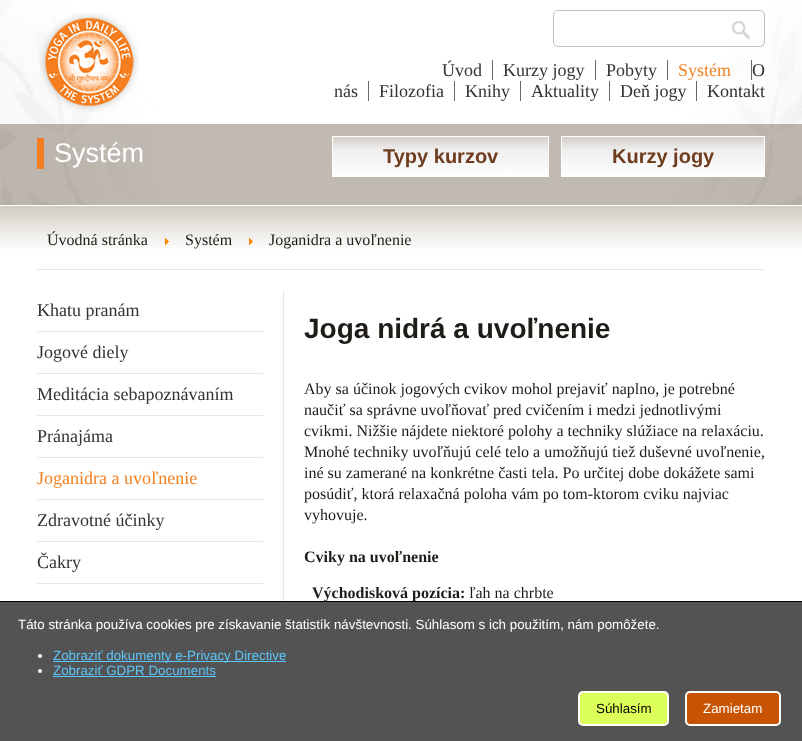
<svg xmlns="http://www.w3.org/2000/svg" width="802" height="741" viewBox="0 0 802 741">
  <defs>
    <linearGradient id="g1" gradientUnits="userSpaceOnUse" x1="441" y1="137" x2="441" y2="176"><stop offset="0" stop-color="rgb(211,206,197)"/><stop offset="0.32" stop-color="rgb(238,238,238)"/><stop offset="1" stop-color="rgb(255,255,255)"/></linearGradient>
    <linearGradient id="g2" gradientUnits="userSpaceOnUse" x1="663" y1="137" x2="663" y2="176"><stop offset="0" stop-color="rgb(211,206,197)"/><stop offset="0.32" stop-color="rgb(238,238,238)"/><stop offset="1" stop-color="rgb(255,255,255)"/></linearGradient>
  </defs>
  <rect width="100%" height="100%" fill="rgb(255,255,255)"/>
  <image x="0" y="0" width="802" height="205" href="pic1.png"/>
  <image x="40" y="12" width="99" height="100" href="pic2.png"/>
  <rect x="553.5" y="10.5" width="211" height="36" rx="4.5" fill="none" stroke="rgb(195,191,180)"/>
  <image x="732" y="21" width="18" height="18" href="pic3.png"/>
  <g font-family="Liberation Serif" font-size="18" fill="rgb(51,50,50)">
    <text x="442" y="76">Úvod</text>
    <text x="503" y="76">Kurzy jogy</text>
  </g>
  <rect x="492" y="60" width="1" height="20" fill="rgb(102,102,102)"/>
  <text x="606" y="76" font-family="Liberation Serif" font-size="18" fill="rgb(51,50,50)">Pobyty</text>
  <rect x="595" y="60" width="1" height="20" fill="rgb(102,102,102)"/>
  <text x="678" y="76" font-family="Liberation Serif" font-size="18" fill="rgb(244,128,33)">Systém</text>
  <rect x="667" y="60" width="1" height="20" fill="rgb(102,102,102)"/>
  <text x="752" y="76" font-family="Liberation Serif" font-size="18" fill="rgb(51,50,50)">O</text>
  <rect x="751" y="60" width="1" height="20" fill="rgb(102,102,102)"/>
  <g font-family="Liberation Serif" font-size="18" fill="rgb(51,50,50)">
    <text x="334" y="97">nás</text>
    <text x="379" y="97">Filozofia</text>
  </g>
  <rect x="368" y="81" width="1" height="20" fill="rgb(102,102,102)"/>
  <text x="465" y="97" font-family="Liberation Serif" font-size="18" fill="rgb(51,50,50)">Knihy</text>
  <rect x="454" y="81" width="1" height="20" fill="rgb(102,102,102)"/>
  <text x="531" y="97" font-family="Liberation Serif" font-size="18" fill="rgb(51,50,50)">Aktuality</text>
  <rect x="520" y="81" width="1" height="20" fill="rgb(102,102,102)"/>
  <text x="620" y="97" font-family="Liberation Serif" font-size="18" fill="rgb(51,50,50)">Deň jogy</text>
  <rect x="609" y="81" width="1" height="20" fill="rgb(102,102,102)"/>
  <text x="707" y="97" font-family="Liberation Serif" font-size="18" fill="rgb(51,50,50)">Kontakt</text>
  <rect x="696" y="81" width="1" height="20" fill="rgb(102,102,102)"/>
  <rect x="0" y="124" width="802" height="81" fill="rgba(46,26,3,0.3)"/>
  <rect x="37" y="138" width="7" height="31" fill="rgb(244,126,33)"/>
  <text x="54" y="162" font-family="Liberation Sans" font-size="27" fill="rgb(255,255,255)">Systém</text>
  <rect x="333" y="137" width="215" height="39" fill="url(#g1)"/>
  <rect x="332.5" y="136.5" width="216" height="40" fill="none" stroke="rgb(255,255,255)"/>
  <text x="383" y="163" font-family="Liberation Sans" font-size="20" font-weight="bold" fill="rgb(111,60,30)">Typy kurzov</text>
  <rect x="562" y="137" width="202" height="39" fill="url(#g2)"/>
  <rect x="561.5" y="136.5" width="203" height="40" fill="none" stroke="rgb(255,255,255)"/>
  <text x="612" y="163" font-family="Liberation Sans" font-size="20" font-weight="bold" fill="rgb(111,60,30)">Kurzy jogy</text>
  <image x="0" y="206" width="802" height="43" href="pic4.png"/>
  <rect x="37" y="269" width="728" height="1" fill="rgb(234,231,224)"/>
  <text x="47" y="245" font-family="Liberation Serif" font-size="16" fill="rgb(31,28,24)">Úvodná stránka</text>
  <image x="165" y="238" width="4" height="7" href="pic5.png"/>
  <text x="185" y="245" font-family="Liberation Serif" font-size="16" fill="rgb(31,28,24)">Systém</text>
  <image x="249" y="238" width="4" height="7" href="pic5.png"/>
  <text x="269" y="245" font-family="Liberation Serif" font-size="16" fill="rgb(31,28,24)">Joganidra a uvoľnenie</text>
  <rect x="283" y="290" width="1" height="311" fill="rgb(234,231,224)"/>
  <rect x="37" y="331" width="226" height="1" fill="rgb(234,231,224)"/>
  <text x="37" y="316" font-family="Liberation Serif" font-size="18" fill="rgb(51,50,50)">Khatu pranám</text>
  <rect x="37" y="373" width="226" height="1" fill="rgb(234,231,224)"/>
  <text x="37" y="358" font-family="Liberation Serif" font-size="18" fill="rgb(51,50,50)">Jogové diely</text>
  <rect x="37" y="415" width="226" height="1" fill="rgb(234,231,224)"/>
  <text x="37" y="400" font-family="Liberation Serif" font-size="18" fill="rgb(51,50,50)">Meditácia sebapoznávaním</text>
  <rect x="37" y="457" width="226" height="1" fill="rgb(234,231,224)"/>
  <text x="37" y="442" font-family="Liberation Serif" font-size="18" fill="rgb(51,50,50)">Pránajáma</text>
  <rect x="37" y="499" width="226" height="1" fill="rgb(234,231,224)"/>
  <text x="37" y="484" font-family="Liberation Serif" font-size="18" fill="rgb(244,128,33)">Joganidra a uvoľnenie</text>
  <rect x="37" y="541" width="226" height="1" fill="rgb(234,231,224)"/>
  <text x="37" y="526" font-family="Liberation Serif" font-size="18" fill="rgb(51,50,50)">Zdravotné účinky</text>
  <rect x="37" y="583" width="226" height="1" fill="rgb(234,231,224)"/>
  <text x="37" y="568" font-family="Liberation Serif" font-size="18" fill="rgb(51,50,50)">Čakry</text>
  <text x="304" y="338" font-family="Liberation Sans" font-size="28" font-weight="bold" fill="rgb(31,28,24)">Joga nidrá a uvoľnenie</text>
  <g font-family="Liberation Serif" font-size="16" fill="rgb(31,28,24)">
    <text>
      <tspan x="304" y="394">Aby sa účinok jogových cvikov mohol prejaviť naplno, je potrebné</tspan>
      <tspan x="304" y="415">naučiť sa správne uvoľňovať pred cvičením i medzi jednotlivými</tspan>
      <tspan x="304" y="436">cvikmi. Nižšie nájdete niektoré polohy a techniky slúžiace na relaxáciu.</tspan>
      <tspan x="304" y="457">Mnohé techniky uvoľňujú celé telo a umožňujú tiež duševné uvoľnenie,</tspan>
      <tspan x="304" y="478">iné su zamerané na konkrétne časti tela. Po určitej dobe dokážete sami</tspan>
      <tspan x="304" y="499">posúdiť, ktorá relaxačná poloha vám po tom-ktorom cviku najviac</tspan>
      <tspan x="304" y="520">vyhovuje.</tspan>
    </text>
  </g>
  <g font-family="Liberation Serif" font-size="16" font-weight="bold" fill="rgb(31,28,24)">
    <text x="304" y="562">Cviky na uvoľnenie</text>
    <text x="312" y="598">Východisková pozícia:</text>
  </g>
  <text x="469" y="598" font-family="Liberation Serif" font-size="16" fill="rgb(31,28,24)">ľah na chrbte</text>
  <rect x="0" y="602" width="802" height="139" fill="rgb(83,83,83)"/>
  <rect x="0" y="601" width="802" height="1" fill="rgb(0,0,0)"/>
  <text x="18" y="629" font-family="Liberation Sans" font-size="13.35" fill="rgb(255,255,255)">Táto stránka používa cookies pre získavanie štatistík návštevnosti. Súhlasom s ich použitím, nám pomôžete.</text>
  <circle cx="40" cy="656" r="2" fill="rgb(255,255,255)"/>
  <rect x="53" y="661" width="233" height="1" fill="rgb(93,198,251)"/>
  <text x="53" y="660" font-family="Liberation Sans" font-size="13.35" fill="rgb(93,198,251)">Zobraziť dokumenty e-Privacy Directive</text>
  <circle cx="40" cy="671" r="2" fill="rgb(255,255,255)"/>
  <text x="53" y="675" font-family="Liberation Sans" font-size="13.35" fill="rgb(93,198,251)">Zobraziť GDPR Documents</text>
  <rect x="53" y="676" width="163" height="1" fill="rgb(93,198,251)"/>
  <rect x="579" y="692" width="89" height="33" rx="4" fill="rgb(221,255,89)" stroke="rgb(255,255,255)" stroke-width="2"/>
  <text x="596" y="713" font-family="Liberation Sans" font-size="13.35" fill="rgb(0,0,0)">Súhlasím</text>
  <rect x="686" y="692" width="94" height="33" rx="4" fill="rgb(200,84,3)" stroke="rgb(255,255,255)" stroke-width="2"/>
  <text x="703" y="713" font-family="Liberation Sans" font-size="13.35" fill="rgb(255,255,255)">Zamietam</text>
</svg>
